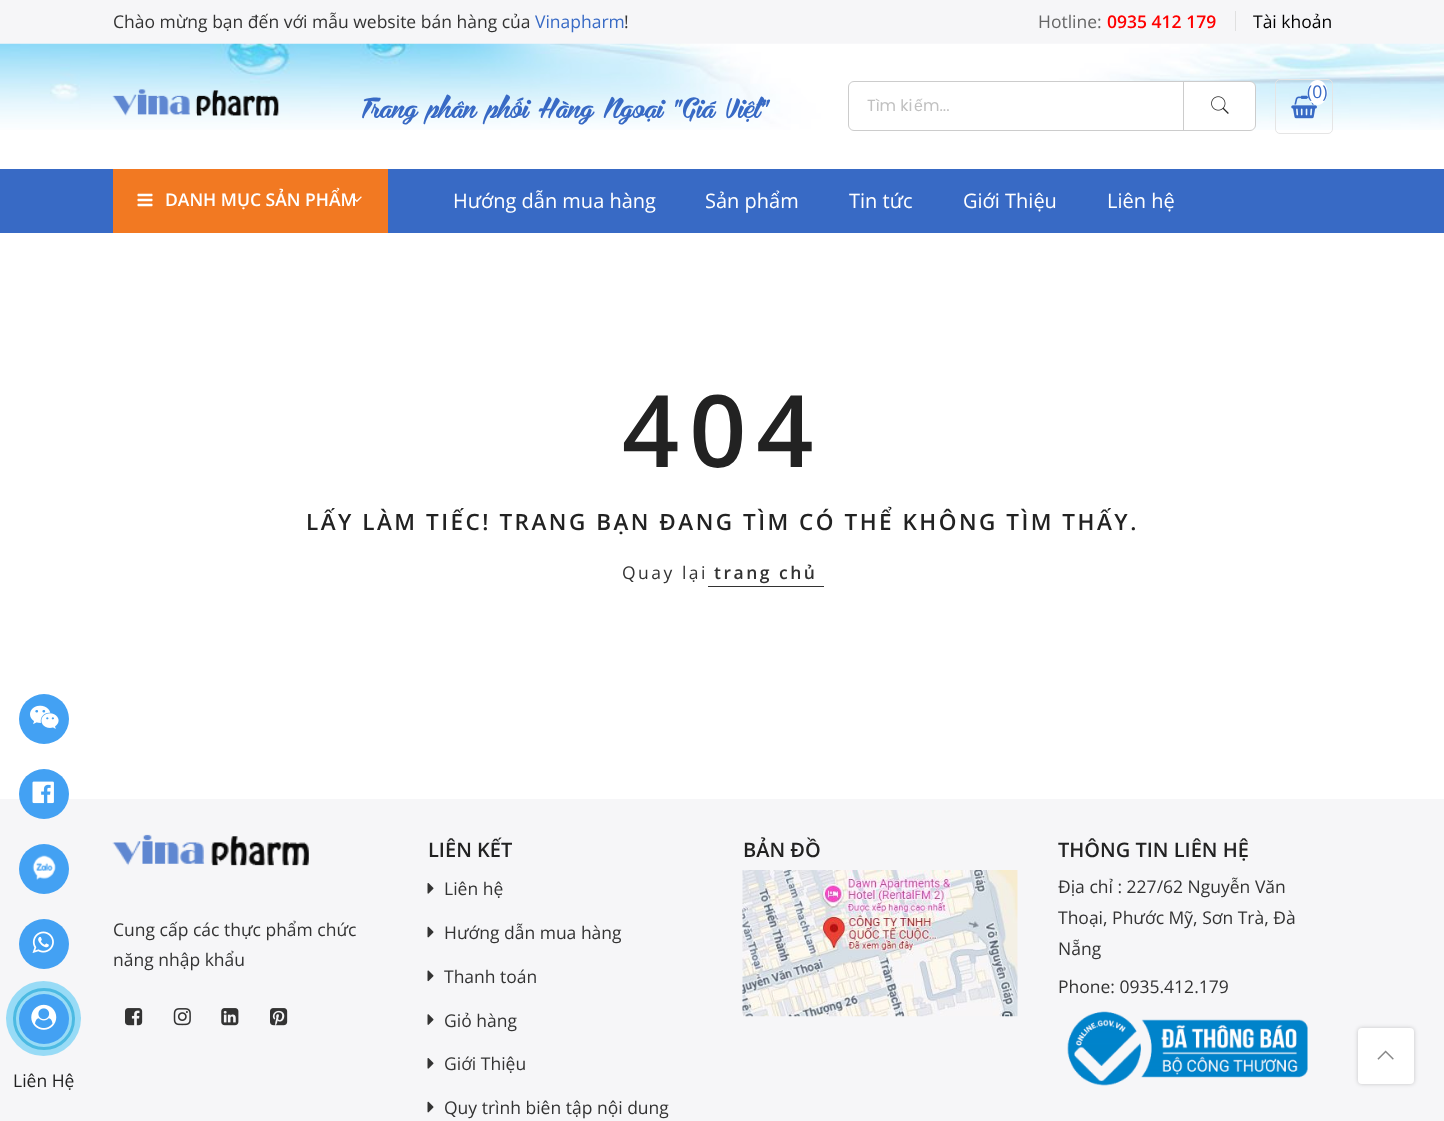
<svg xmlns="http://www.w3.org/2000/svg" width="1444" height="1121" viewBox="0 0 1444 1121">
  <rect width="100%" height="100%" fill="rgb(255,255,255)"/>
  <circle cx="44" cy="719" r="25" fill="rgb(67,161,243)"/>
  <image x="30" y="705" width="29" height="24" href="pic1.png"/>
  <rect x="0" y="799" width="1444" height="322" fill="rgb(246,246,248)"/>
  <circle cx="44" cy="794" r="25" fill="rgb(67,161,243)"/>
  <image x="32" y="781" width="22" height="23" href="pic2.png"/>
  <circle cx="44" cy="869" r="25" fill="rgb(67,161,243)"/>
  <image x="32" y="855" width="24" height="25" href="pic3.png"/>
  <circle cx="44" cy="944" r="25" fill="rgb(67,161,243)"/>
  <image x="32" y="931" width="22" height="22" href="pic4.png"/>
  <circle cx="44" cy="1019" r="29.5" fill="none" stroke="rgb(123,192,217)" stroke-width="3"/>
  <circle cx="43.5" cy="1018.5" r="37.5" fill="rgba(0,175,242,0.38)"/>
  <circle cx="44" cy="1019" r="25" fill="rgb(67,161,243)"/>
  <image x="31" y="1004" width="26" height="26" href="pic5.png"/>
  <text x="13" y="1087" font-family="Open Sans" font-size="17.5" fill="rgb(34,34,34)">Liên Hệ</text>
  <rect x="0" y="0" width="1444" height="44" fill="rgb(246,246,248)"/>
  <text x="113" y="28" font-family="Open Sans" font-size="17.5" fill="rgb(51,51,51)">Chào mừng bạn đến với mẫu website bán hàng của</text>
  <text x="535" y="28" font-family="Open Sans" font-size="17.5" fill="rgb(56,106,197)">Vinapharm</text>
  <text x="624" y="28" font-family="Open Sans" font-size="17.5" fill="rgb(51,51,51)">!</text>
  <text x="1038" y="28" font-family="Open Sans" font-size="17.5" fill="rgb(102,102,102)">Hotline:</text>
  <text x="1107" y="28" font-family="Open Sans" font-size="17.5" font-weight="600" fill="rgb(255,0,0)">0935 412 179</text>
  <rect x="1235" y="11" width="1" height="20" fill="rgb(224,224,224)"/>
  <text x="1253" y="28" font-family="Open Sans" font-size="17.5" fill="rgb(0,0,0)">Tài khoản</text>
  <image x="0" y="43" width="1444" height="87" href="pic6.png"/>
  <image x="112" y="89" width="167" height="27" href="pic7.png"/>
  <text x="362" y="118" font-family="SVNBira" font-size="25" fill="rgb(56,106,197)">Trang phân phối Hàng Ngoại "Giá Việt"</text>
  <rect x="1275.5" y="79.5" width="57" height="54" rx="4.5" fill="none" stroke="rgb(229,229,229)"/>
  <image x="1291" y="95" width="26" height="24" href="pic8.png"/>
  <ellipse cx="1317.5" cy="92.5" rx="10" ry="12.5" fill="rgb(255,255,255)"/>
  <text x="1307" y="98" font-family="Open Sans" font-size="17.5" fill="rgb(56,106,197)">(0)</text>
  <rect x="848.5" y="81.5" width="407" height="49" rx="5.5" fill="rgb(255,255,255)" stroke="rgb(204,204,204)"/>
  <text x="867" y="111" font-family="Poppins" font-size="16" fill="rgb(193,193,193)">Tìm ki</text>
  <text x="914" y="111" font-family="Liberation Sans" font-size="16" fill="rgb(193,193,193)">ế</text>
  <text x="923" y="111" font-family="Poppins" font-size="16" fill="rgb(193,193,193)">m...</text>
  <rect x="1183" y="81" width="1" height="50" fill="rgb(204,204,204)"/>
  <image x="1211" y="96" width="18" height="18" href="pic9.png"/>
  <rect x="0" y="169" width="1444" height="64" fill="rgb(56,106,197)"/>
  <rect x="113" y="169" width="275" height="64" fill="rgb(242,121,34)"/>
  <image x="137" y="193" width="16" height="14" href="pic10.png"/>
  <text x="165" y="206" font-family="Open Sans" font-size="17.5" font-weight="600" fill="rgb(255,255,255)">DANH MỤC SẢN PHẨM</text>
  <image x="352" y="196" width="10" height="6" href="pic11.png"/>
  <g font-family="Open Sans" font-size="20" fill="rgb(255,255,255)">
    <text x="453" y="208">Hướng dẫn mua hàng</text>
    <text x="705" y="208">Sản phẩm</text>
    <text x="849" y="208">Tin tức</text>
    <text x="963" y="208">Giới Thiệu</text>
    <text x="1107" y="208">Liên hệ</text>
  </g>
  <text x="622" y="467" font-family="Open Sans" font-size="100" font-weight="600" letter-spacing="10" fill="rgb(34,34,34)">404</text>
  <text x="306" y="530" font-family="Open Sans" font-size="22.5" font-weight="600" letter-spacing="2.5" fill="rgb(34,34,34)">LẤY LÀM TIẾC! TRANG BẠN ĐANG TÌM CÓ THỂ KHÔNG TÌM THẤY.</text>
  <text x="622" y="579" font-family="Open Sans" font-size="17.5" letter-spacing="2.5" fill="rgb(51,51,51)">Quay lại</text>
  <text x="714" y="579" font-family="Open Sans" font-size="17.5" font-weight="600" letter-spacing="2.5" fill="rgb(51,51,51)">trang chủ</text>
  <rect x="708" y="586" width="116" height="1" fill="rgb(51,51,51)"/>
  <image x="112" y="834" width="197" height="32" href="pic12.png"/>
  <g font-family="Open Sans" font-size="17.5" fill="rgb(51,51,51)">
    <text>
      <tspan x="113" y="936">Cung cấp các thực phẩm chức</tspan>
      <tspan x="113" y="966">năng nhập khẩu</tspan>
    </text>
  </g>
  <image x="125" y="1008" width="18" height="18" href="pic13.png"/>
  <image x="173" y="1008" width="18" height="18" href="pic14.png"/>
  <image x="221" y="1008" width="18" height="18" href="pic15.png"/>
  <image x="270" y="1008" width="18" height="18" href="pic16.png"/>
  <text x="428" y="857" font-family="Open Sans" font-size="20" font-weight="600" fill="rgb(34,34,34)">LIÊN KẾT</text>
  <image x="427" y="883" width="7" height="11" href="pic17.png"/>
  <text x="444" y="895" font-family="Open Sans" font-size="17.5" fill="rgb(51,51,51)">Liên hệ</text>
  <image x="427" y="926" width="7" height="12" href="pic18.png"/>
  <text x="444" y="939" font-family="Open Sans" font-size="17.5" fill="rgb(51,51,51)">Hướng dẫn mua hàng</text>
  <image x="427" y="970" width="7" height="12" href="pic19.png"/>
  <text x="444" y="983" font-family="Open Sans" font-size="17.5" fill="rgb(51,51,51)">Thanh toán</text>
  <image x="427" y="1014" width="7" height="11" href="pic20.png"/>
  <text x="444" y="1027" font-family="Open Sans" font-size="17.5" fill="rgb(51,51,51)">Giỏ hàng</text>
  <image x="427" y="1058" width="7" height="11" href="pic17.png"/>
  <text x="444" y="1070" font-family="Open Sans" font-size="17.5" fill="rgb(51,51,51)">Giới Thiệu</text>
  <image x="427" y="1101" width="7" height="12" href="pic18.png"/>
  <text x="444" y="1114" font-family="Open Sans" font-size="17.5" fill="rgb(51,51,51)">Quy trình biên tập nội dung</text>
  <text x="743" y="857" font-family="Open Sans" font-size="20" font-weight="600" fill="rgb(34,34,34)">BẢN ĐỒ</text>
  <image x="742" y="870" width="276" height="147" href="pic21.png"/>
  <text x="1058" y="857" font-family="Open Sans" font-size="20" font-weight="600" fill="rgb(34,34,34)">THÔNG TIN LIÊN HỆ</text>
  <g font-family="Open Sans" font-size="17.5" fill="rgb(51,51,51)">
    <text>
      <tspan x="1058" y="893">Địa chỉ : 227/62 Nguyễn Văn</tspan>
      <tspan x="1058" y="924">Thoại, Phước Mỹ, Sơn Trà, Đà</tspan>
      <tspan x="1058" y="955">Nẵng</tspan>
    </text>
    <text x="1058" y="993">Phone: 0935.412.179</text>
  </g>
  <image x="1067" y="1011" width="241" height="75" href="pic22.png"/>
  <rect x="1358" y="1028" width="56" height="56" rx="4" fill="rgba(0,0,0,0.2)" filter="blur(2px)"/>
  <rect x="1358" y="1028" width="56" height="56" rx="4" fill="rgb(255,255,255)"/>
  <image x="1377" y="1050" width="17" height="10" href="pic23.png"/>
</svg>
